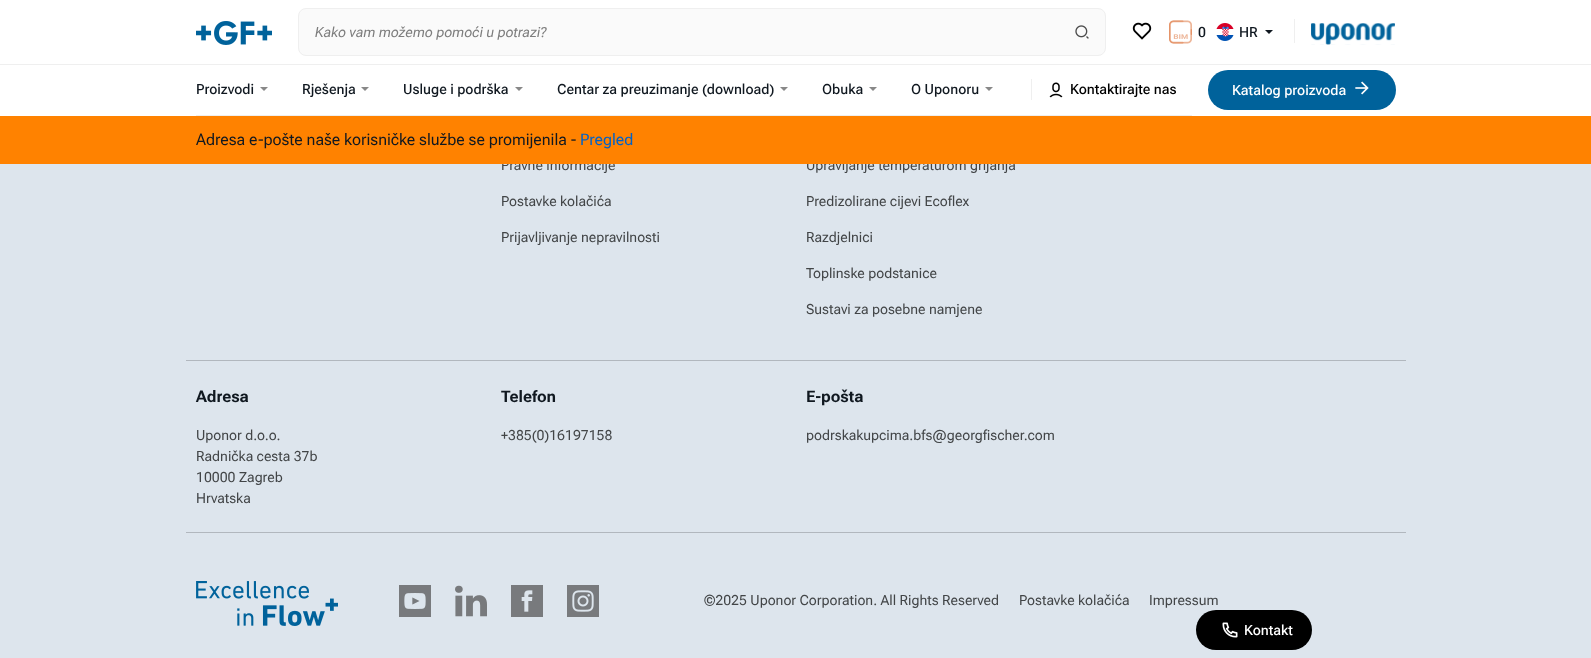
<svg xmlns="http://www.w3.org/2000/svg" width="1591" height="658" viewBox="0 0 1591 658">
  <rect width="100%" height="100%" fill="rgb(221,229,237)"/>
  <rect x="0" y="0" width="1591" height="116" fill="rgb(255,255,255)"/>
  <image x="196" y="21" width="76" height="24" href="pic1.png"/>
  <rect x="298.5" y="8.5" width="807" height="47" rx="7.5" fill="rgb(250,250,250)" stroke="rgb(239,239,239)"/>
  <text x="315" y="37" font-family="Roboto Flex" font-size="14" font-style="italic" fill="rgb(125,125,125)">Kako vam možemo pomoći u potrazi?</text>
  <image x="1075" y="25" width="14" height="14" href="pic2.png"/>
  <image x="1132" y="22" width="20" height="18" href="pic3.png"/>
  <image x="1169" y="20" width="23" height="24" href="pic4.png"/>
  <text x="1198" y="37" font-family="Roboto Flex" font-size="14" font-weight="500" fill="rgb(16,24,32)">0</text>
  <image x="1216" y="23" width="18" height="18" href="pic5.png"/>
  <text x="1239" y="37" font-family="Roboto Flex" font-size="14" font-weight="500" fill="rgb(16,24,32)">HR</text>
  <path d="M1265 30H1273L1269 34Z" fill="rgb(16,24,32)"/>
  <rect x="1294" y="19" width="1" height="24" fill="rgb(239,239,239)"/>
  <image x="1311" y="23" width="84" height="22" href="pic6.png"/>
  <rect x="0" y="64" width="1591" height="1" fill="rgb(239,239,239)"/>
  <rect x="196" y="115" width="996" height="1" fill="rgb(239,239,239)"/>
  <text x="196" y="94" font-family="Roboto Flex" font-size="14" font-weight="500" fill="rgb(16,24,32)">Proizvodi</text>
  <path d="M260 87H268L264 91Z" fill="rgb(136,136,136)"/>
  <text x="302" y="94" font-family="Roboto Flex" font-size="14" font-weight="500" fill="rgb(16,24,32)">Rješenja</text>
  <path d="M361 87H369L365 91Z" fill="rgb(136,136,136)"/>
  <text x="403" y="94" font-family="Roboto Flex" font-size="14" font-weight="500" fill="rgb(16,24,32)">Usluge i podrška</text>
  <path d="M515 87H523L519 91Z" fill="rgb(136,136,136)"/>
  <text x="557" y="94" font-family="Roboto Flex" font-size="14" font-weight="500" fill="rgb(16,24,32)">Centar za preuzimanje (download)</text>
  <path d="M780 87H788L784 91Z" fill="rgb(136,136,136)"/>
  <text x="822" y="94" font-family="Roboto Flex" font-size="14" font-weight="500" fill="rgb(16,24,32)">Obuka</text>
  <path d="M869 87H877L873 91Z" fill="rgb(136,136,136)"/>
  <text x="911" y="94" font-family="Roboto Flex" font-size="14" font-weight="500" fill="rgb(16,24,32)">O Uponoru</text>
  <path d="M985 87H993L989 91Z" fill="rgb(136,136,136)"/>
  <rect x="1031" y="79" width="1" height="21" fill="rgb(239,239,239)"/>
  <image x="1049" y="82" width="14" height="16" href="pic7.png"/>
  <text x="1070" y="94" font-family="Roboto Flex" font-size="14" font-weight="500" fill="rgb(0,0,0)">Kontaktirajte nas</text>
  <rect x="1208" y="70" width="188" height="40" rx="20" fill="rgb(0,98,155)"/>
  <text x="1232" y="95" font-family="Roboto Flex" font-size="14" font-weight="500" fill="rgb(255,255,255)">Katalog proizvoda</text>
  <image x="1355" y="81" width="14" height="14" href="pic8.png"/>
  <g font-family="Roboto Flex" font-size="14" fill="rgb(66,69,71)">
    <text x="501" y="170">Pravne informacije</text>
    <text x="806" y="170">Upravljanje temperaturom grijanja</text>
  </g>
  <rect x="0" y="116" width="1591" height="48" fill="rgb(255,130,0)"/>
  <text x="196" y="145" font-family="'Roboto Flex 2'" font-size="16" fill="rgb(16,24,32)">Adresa e-pošte naše korisničke službe se promijenila -</text>
  <text x="580" y="145" font-family="'Roboto Flex 2'" font-size="16" fill="rgb(0,98,200)">Pregled</text>
  <rect x="1196" y="610" width="116" height="40" rx="20" fill="rgb(0,0,0)"/>
  <image x="1222" y="622" width="16" height="16" href="pic9.png"/>
  <text x="1244" y="635" font-family="Roboto Flex" font-size="14" font-weight="500" fill="rgb(255,255,255)">Kontakt</text>
  <g font-family="Roboto Flex" font-size="14" fill="rgb(66,69,71)">
    <text x="501" y="206">Postavke kolačića</text>
    <text x="501" y="242">Prijavljivanje nepravilnosti</text>
    <text x="806" y="206">Predizolirane cijevi Ecoflex</text>
    <text x="806" y="242">Razdjelnici</text>
    <text x="806" y="278">Toplinske podstanice</text>
    <text x="806" y="314">Sustavi za posebne namjene</text>
  </g>
  <rect x="186" y="360" width="1220" height="1" fill="rgb(177,183,190)"/>
  <text x="196" y="402" font-family="Roboto Flex" font-size="16" font-weight="bold" fill="rgb(16,24,32)">Adresa</text>
  <g font-family="Roboto Flex" font-size="14" fill="rgb(66,69,71)">
    <text>
      <tspan x="196" y="440">Uponor d.o.o.</tspan>
      <tspan x="196" y="461">Radnička cesta 37b</tspan>
      <tspan x="196" y="482">10000 Zagreb</tspan>
      <tspan x="196" y="503">Hrvatska</tspan>
    </text>
  </g>
  <text x="501" y="402" font-family="Roboto Flex" font-size="16" font-weight="bold" fill="rgb(16,24,32)">Telefon</text>
  <text x="501" y="440" font-family="Roboto Flex" font-size="14" fill="rgb(66,69,71)">+385(0)16197158</text>
  <text x="806" y="402" font-family="Roboto Flex" font-size="16" font-weight="bold" fill="rgb(16,24,32)">E-pošta</text>
  <text x="806" y="440" font-family="Roboto Flex" font-size="14" fill="rgb(66,69,71)">podrskakupcima.bfs@georgfischer.com</text>
  <rect x="186" y="532" width="1220" height="1" fill="rgb(177,183,190)"/>
  <image x="196" y="581" width="142" height="45" href="pic10.png"/>
  <image x="399" y="585" width="32" height="32" href="pic11.png"/>
  <image x="455" y="585" width="32" height="32" href="pic12.png"/>
  <image x="511" y="585" width="32" height="32" href="pic13.png"/>
  <image x="567" y="585" width="32" height="32" href="pic14.png"/>
  <g font-family="Roboto Flex" font-size="14" fill="rgb(66,69,71)">
    <text x="704" y="605">©2025 Uponor Corporation. All Rights Reserved</text>
    <text x="1019" y="605">Postavke kolačića</text>
    <text x="1149" y="605">Impressum</text>
  </g>
</svg>
